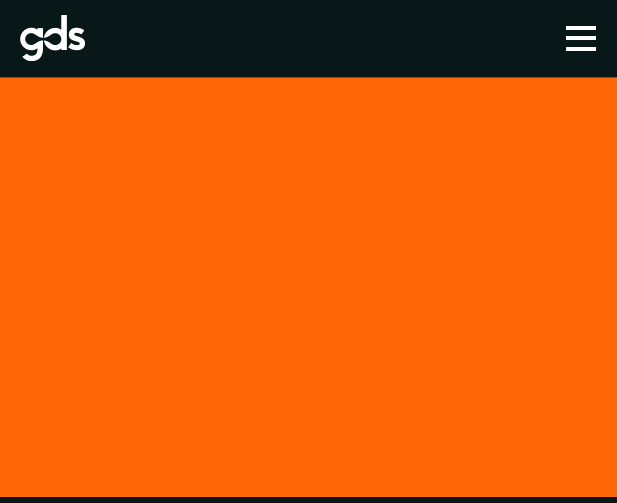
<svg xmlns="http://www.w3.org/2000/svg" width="617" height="503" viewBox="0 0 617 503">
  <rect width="100%" height="100%" fill="rgb(8,24,24)"/>
  <image x="20" y="15" width="65" height="46" href="pic1.png"/>
  <rect x="566" y="36" width="30" height="4" fill="rgb(255,255,255)"/>
  <rect x="566" y="26" width="30" height="4" fill="rgb(255,255,255)"/>
  <rect x="566" y="47" width="30" height="4" fill="rgb(255,255,255)"/>
  <rect x="0" y="77" width="617" height="1" fill="rgb(82,93,93)"/>
  <rect x="0" y="78" width="617" height="419" fill="rgb(255,102,6)"/>
</svg>
